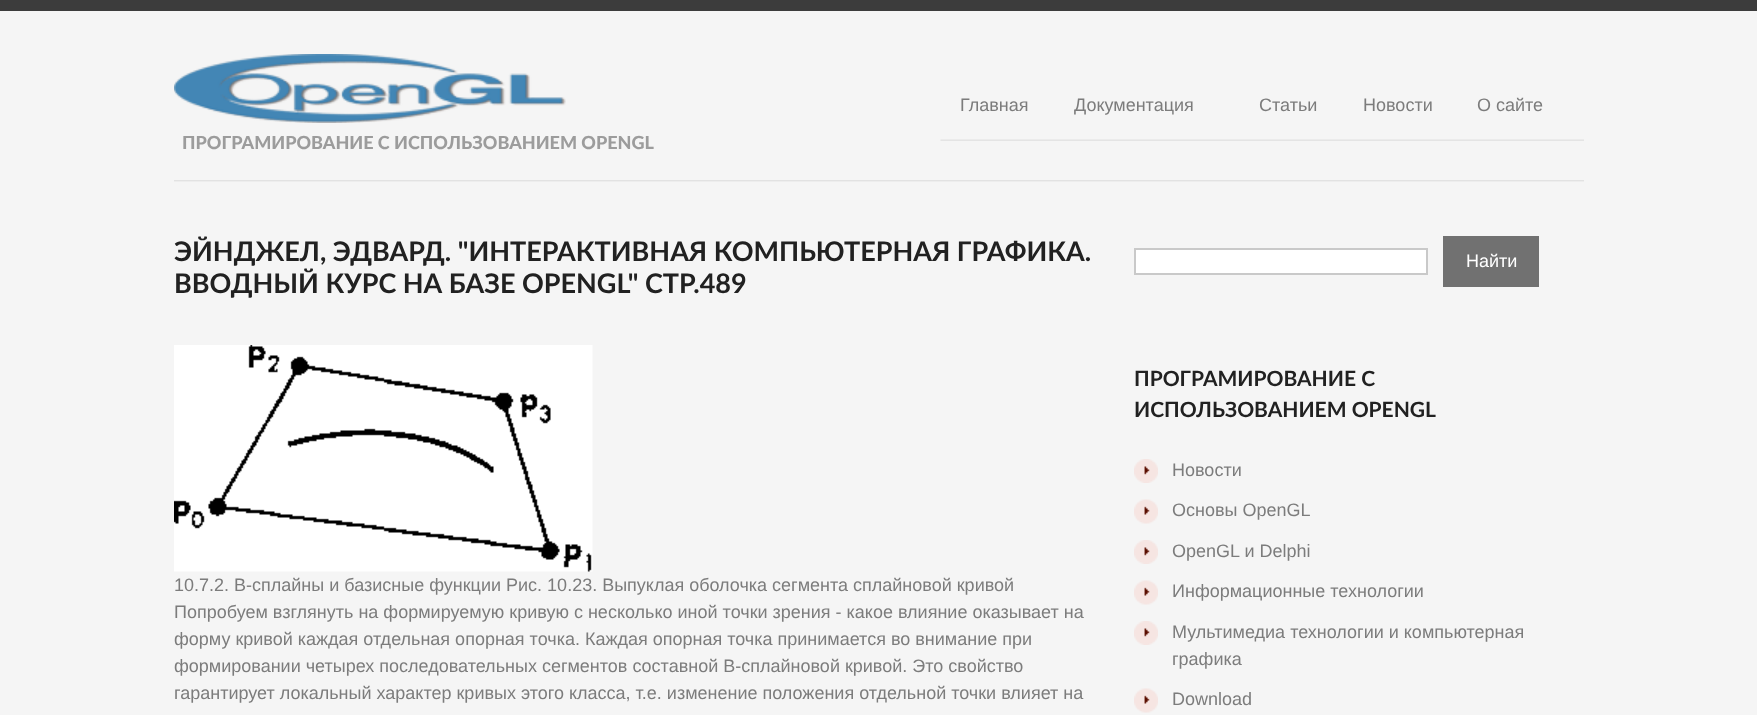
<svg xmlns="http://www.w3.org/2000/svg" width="1757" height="715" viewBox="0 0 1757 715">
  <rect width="100%" height="100%" fill="rgb(245,245,245)"/>
  <rect x="0" y="0" width="1757" height="11" fill="rgb(60,60,60)"/>
  <image x="940" y="139" width="644" height="2" href="pic1.png"/>
  <g font-family="Liberation Sans" font-size="18" fill="rgb(124,124,124)">
    <text x="960" y="111">Главная</text>
    <text x="1074" y="111">Документация</text>
    <text x="1259" y="111">Статьи</text>
    <text x="1363" y="111">Новости</text>
    <text x="1477" y="111">О сайте</text>
  </g>
  <image x="174" y="54" width="392" height="69" href="pic2.png"/>
  <text x="182" y="149" font-family="Lato" font-size="18" font-weight="900" fill="rgb(156,156,156)">ПРОГРАМИРОВАНИЕ С ИСПОЛЬЗОВАНИЕМ OPENGL</text>
  <image x="174" y="180" width="1410" height="2" href="pic3.png"/>
  <g font-family="Lato" font-size="27" font-weight="bold" fill="rgb(33,33,33)">
    <text>
      <tspan x="174" y="261">ЭЙНДЖЕЛ, ЭДВАРД. "ИНТЕРАКТИВНАЯ КОМПЬЮТЕРНАЯ ГРАФИКА.</tspan>
      <tspan x="174" y="293">ВВОДНЫЙ КУРС НА БАЗЕ OPENGL" СТР.489</tspan>
    </text>
  </g>
  <image x="174" y="345" width="419" height="227" href="pic4.png"/>
  <g font-family="Liberation Sans" font-size="18" fill="rgb(124,124,124)">
    <text>
      <tspan x="174" y="591">10.7.2. В-сплайны и базисные функции Рис. 10.23. Выпуклая оболочка сегмента сплайновой кривой</tspan>
      <tspan x="174" y="618">Попробуем взглянуть на формируемую кривую с несколько иной точки зрения - какое влияние оказывает на</tspan>
      <tspan x="174" y="645">форму кривой каждая отдельная опорная точка. Каждая опорная точка принимается во внимание при</tspan>
      <tspan x="174" y="672">формировании четырех последовательных сегментов составной В-сплайновой кривой. Это свойство</tspan>
      <tspan x="174" y="699">гарантирует локальный характер кривых этого класса, т.е. изменение положения отдельной точки влияет на</tspan>
    </text>
  </g>
  <rect x="1135" y="249" width="292" height="25" fill="rgb(255,255,255)" stroke="rgb(201,201,201)" stroke-width="2"/>
  <rect x="1443" y="236" width="96" height="51" fill="rgb(113,113,113)"/>
  <text x="1466" y="267" font-family="Liberation Sans" font-size="18" fill="rgb(255,255,255)">Найти</text>
  <g font-family="Lato" font-size="21" font-weight="bold" fill="rgb(33,33,33)">
    <text>
      <tspan x="1134" y="386">ПРОГРАМИРОВАНИЕ С</tspan>
      <tspan x="1134" y="417">ИСПОЛЬЗОВАНИЕМ OPENGL</tspan>
    </text>
  </g>
  <image x="1134" y="459" width="24" height="24" href="pic5.png"/>
  <text x="1172" y="476" font-family="Liberation Sans" font-size="18" fill="rgb(124,124,124)">Новости</text>
  <image x="1134" y="499" width="24" height="25" href="pic6.png"/>
  <text x="1172" y="516" font-family="Liberation Sans" font-size="18" fill="rgb(124,124,124)">Основы OpenGL</text>
  <image x="1134" y="540" width="24" height="24" href="pic5.png"/>
  <text x="1172" y="557" font-family="Liberation Sans" font-size="18" fill="rgb(124,124,124)">OpenGL и Delphi</text>
  <image x="1134" y="580" width="24" height="25" href="pic6.png"/>
  <text x="1172" y="597" font-family="Liberation Sans" font-size="18" fill="rgb(124,124,124)">Информационные технологии</text>
  <image x="1134" y="621" width="24" height="24" href="pic5.png"/>
  <g font-family="Liberation Sans" font-size="18" fill="rgb(124,124,124)">
    <text>
      <tspan x="1172" y="638">Мультимедиа технологии и компьютерная</tspan>
      <tspan x="1172" y="665">графика</tspan>
    </text>
  </g>
  <image x="1134" y="688" width="24" height="25" href="pic6.png"/>
  <text x="1172" y="705" font-family="Liberation Sans" font-size="18" fill="rgb(124,124,124)">Download</text>
</svg>
